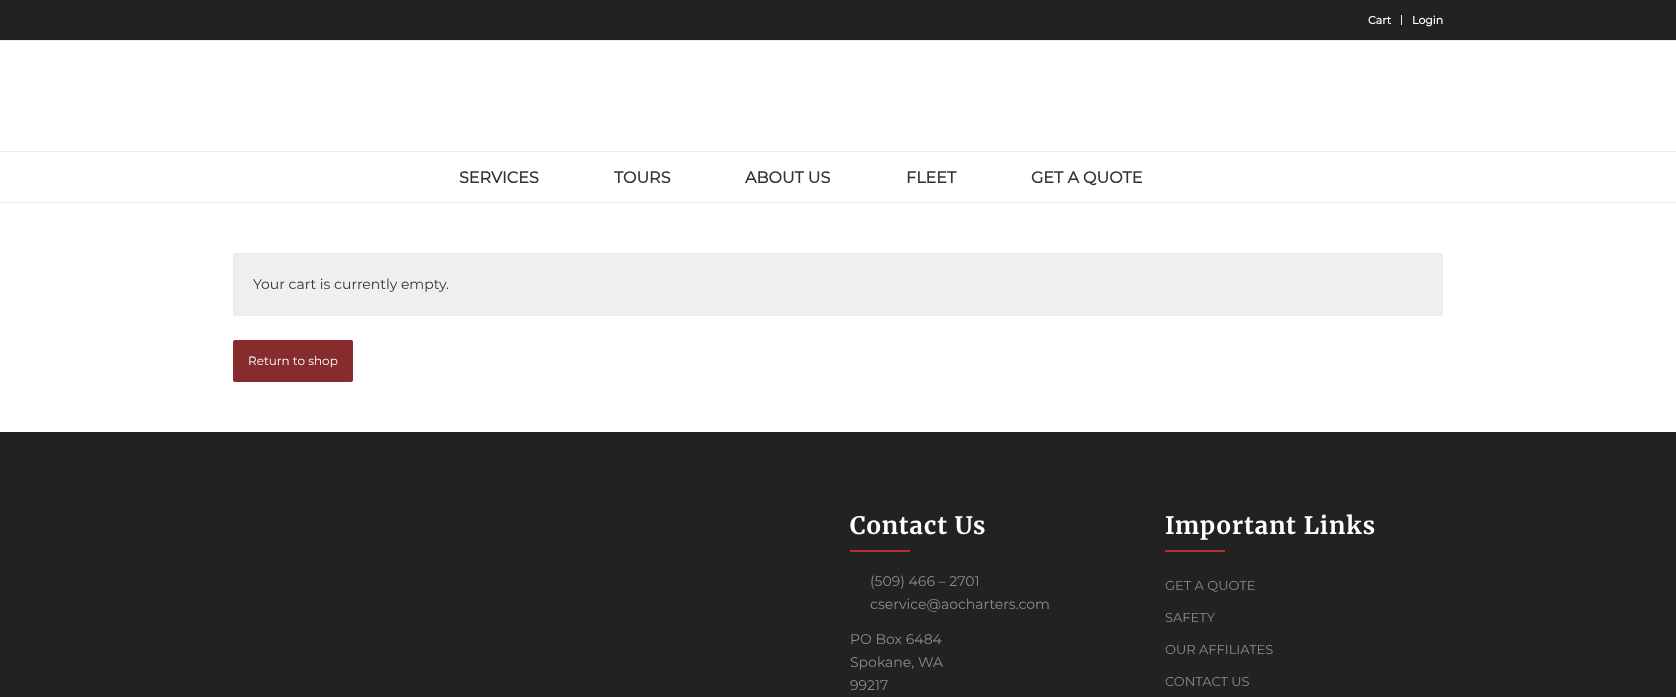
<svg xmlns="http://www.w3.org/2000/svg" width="1676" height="697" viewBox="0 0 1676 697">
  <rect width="100%" height="100%" fill="rgb(255,255,255)"/>
  <rect x="0" y="0" width="1676" height="40" fill="rgb(34,34,34)"/>
  <rect x="0" y="40" width="1676" height="1" fill="rgb(235,235,235)"/>
  <rect x="1401" y="15" width="1" height="10" fill="rgb(235,235,235)"/>
  <g font-family="Montserrat" font-size="11" font-weight="bold" fill="rgb(255,255,255)">
    <text x="1368" y="24">Cart</text>
    <text x="1412" y="24">Login</text>
  </g>
  <rect x="0" y="202" width="1676" height="1" fill="rgb(235,235,235)"/>
  <rect x="0" y="151" width="1676" height="1" fill="rgb(235,235,235)"/>
  <g font-family="Montserrat" font-size="16" font-weight="bold" fill="rgb(51,51,51)">
    <text x="459" y="183">SERVICES</text>
    <text x="614" y="183">TOURS</text>
    <text x="745" y="183">ABOUT US</text>
    <text x="906" y="183">FLEET</text>
    <text x="1031" y="183">GET A QUOTE</text>
  </g>
  <rect x="233.5" y="253.5" width="1209" height="62" rx="1.5" fill="rgb(239,239,239)" stroke="rgb(235,235,235)"/>
  <text x="253" y="289" font-family="Montserrat" font-size="14" font-weight="100" fill="rgb(51,51,51)">Your cart is currently empty.</text>
  <rect x="233" y="340" width="120" height="42" rx="2" fill="rgb(134,44,44)"/>
  <text x="248" y="365" font-family="Montserrat" font-size="12" font-weight="100" fill="rgb(255,255,255)">Return to shop</text>
  <rect x="0" y="432" width="1676" height="265" fill="rgb(34,34,34)"/>
  <text x="850" y="534" font-family="Merriweather" font-size="24" font-weight="bold" letter-spacing="1" fill="rgb(255,255,255)">Contact Us</text>
  <rect x="850" y="550" width="60" height="2" fill="rgb(179,49,49)"/>
  <g font-family="Montserrat" font-size="14" font-weight="100" fill="rgb(141,141,141)">
    <text>
      <tspan x="870" y="586">(509) 466 – 2701</tspan>
      <tspan x="870" y="609">cservice@aocharters.com</tspan>
    </text>
    <text>
      <tspan x="850" y="644">PO Box 6484</tspan>
      <tspan x="850" y="667">Spokane, WA</tspan>
      <tspan x="850" y="690">99217</tspan>
    </text>
  </g>
  <text x="1165" y="534" font-family="Merriweather" font-size="24" font-weight="bold" letter-spacing="1" fill="rgb(255,255,255)">Important Links</text>
  <rect x="1165" y="550" width="60" height="2" fill="rgb(179,49,49)"/>
  <g font-family="Montserrat" font-size="13" font-weight="100" fill="rgb(141,141,141)">
    <text x="1165" y="590">GET A QUOTE</text>
    <text x="1165" y="622">SAFETY</text>
    <text x="1165" y="654">OUR AFFILIATES</text>
    <text x="1165" y="686">CONTACT US</text>
  </g>
</svg>
